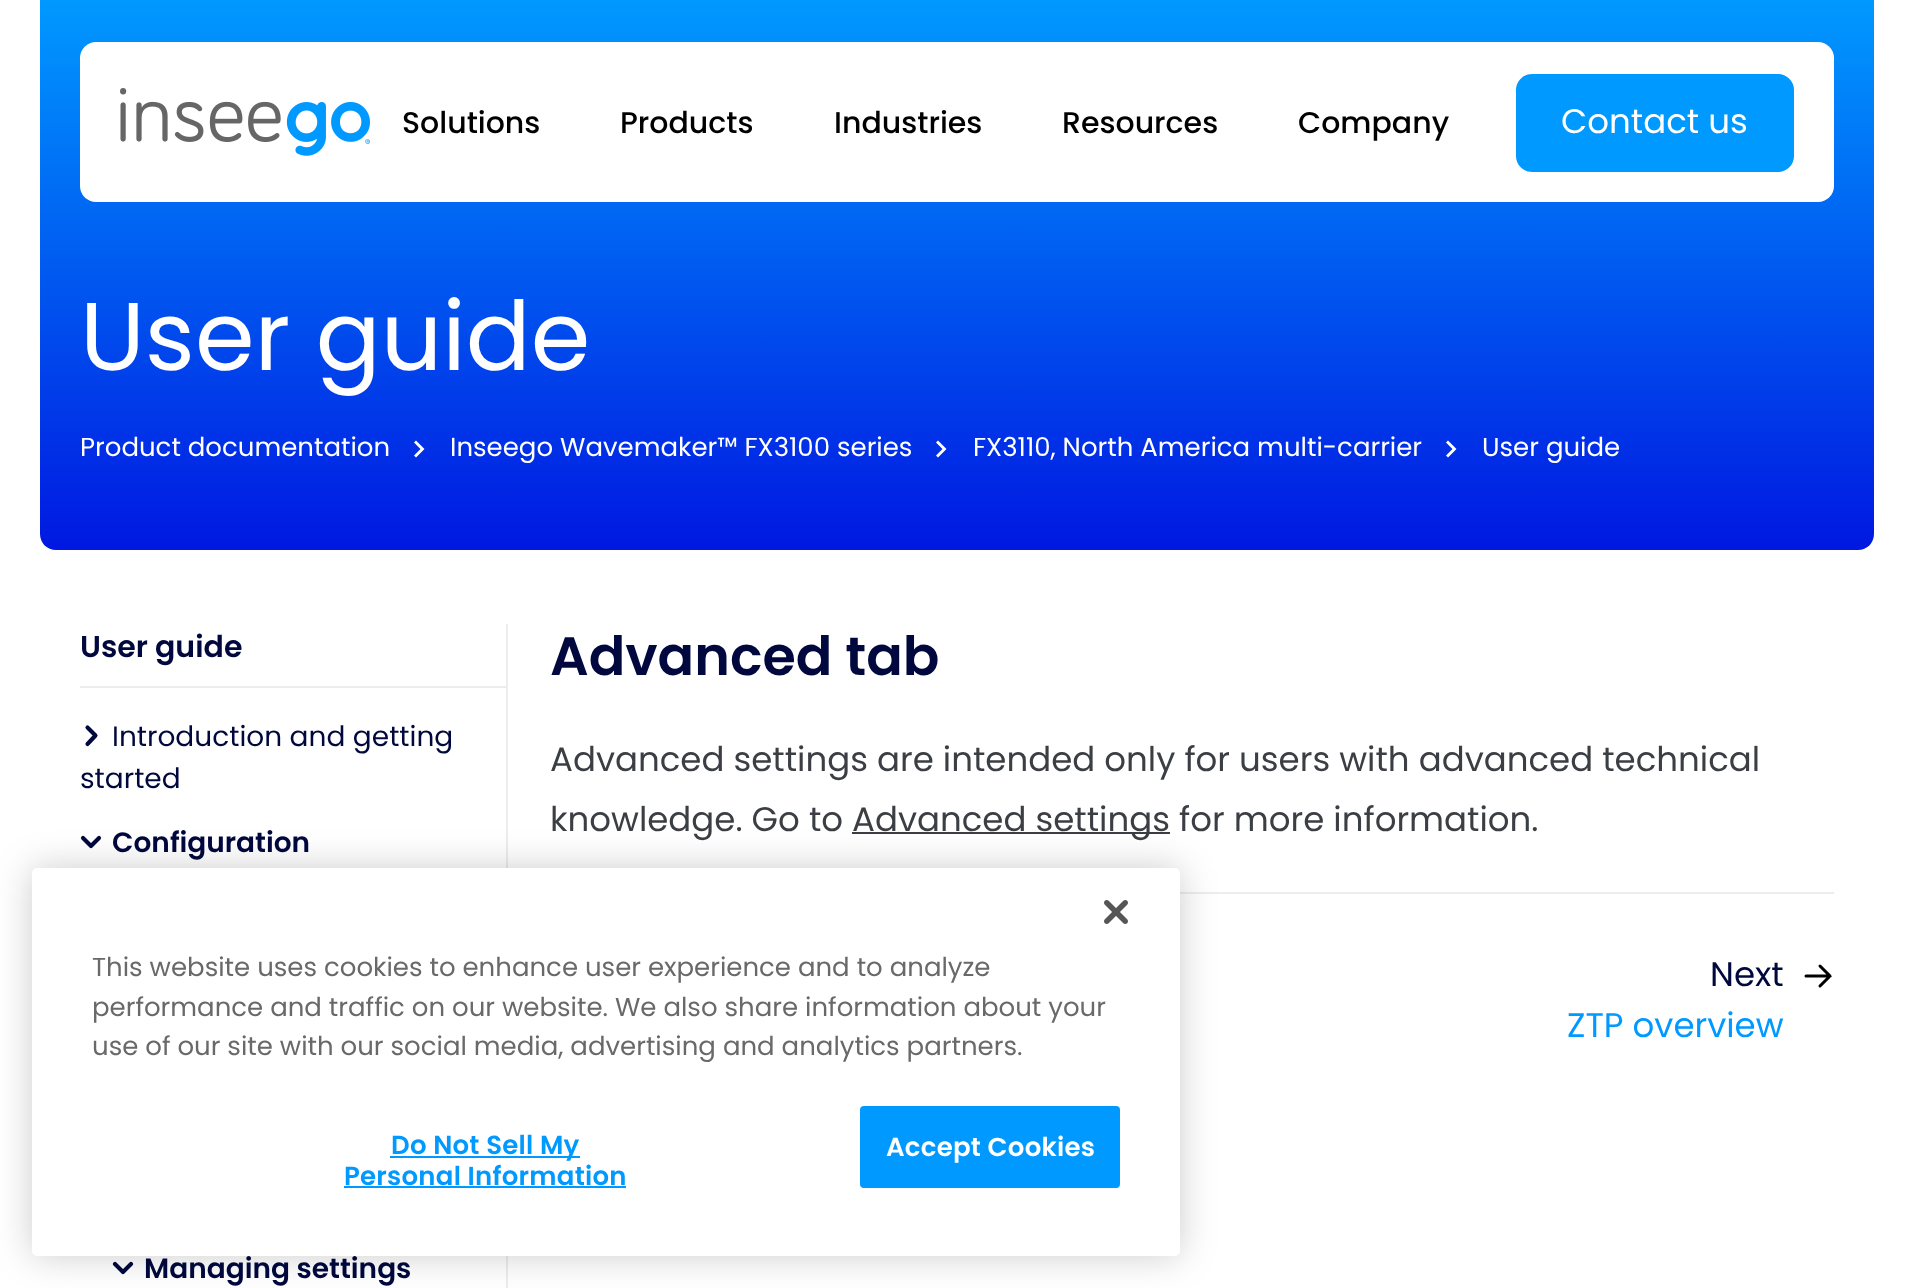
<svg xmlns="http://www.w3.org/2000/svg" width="1914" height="1288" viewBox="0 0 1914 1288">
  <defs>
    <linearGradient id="g1" gradientUnits="userSpaceOnUse" x1="957" y1="0" x2="957" y2="550"><stop offset="0" stop-color="rgb(0,153,255)"/><stop offset="1" stop-color="rgb(0,24,225)"/></linearGradient>
  </defs>
  <rect width="100%" height="100%" fill="rgb(255,255,255)"/>
  <path d="M40 0H1874V534C1874 543 1867 550 1858 550H56C47 550 40 543 40 534Z" fill="url(#g1)"/>
  <rect x="80" y="42" width="1754" height="160" rx="16" fill="rgb(255,255,255)"/>
  <image x="120" y="88" width="250" height="68" href="pic1.png"/>
  <g font-family="Poppins" font-size="30" font-weight="500" fill="rgb(0,0,0)">
    <text x="402" y="133">Solutions</text>
    <text x="620" y="133">Products</text>
    <text x="834" y="133">Industries</text>
    <text x="1062" y="133">Resources</text>
    <text x="1298" y="133">Company</text>
  </g>
  <rect x="1518" y="76" width="274" height="94" rx="14" fill="rgb(0,153,255)" stroke="rgb(0,153,255)" stroke-width="4"/>
  <text x="1561" y="133" font-family="Poppins" font-size="34" fill="rgb(255,255,255)">Contact us</text>
  <text x="80" y="370" font-family="Poppins" font-size="96" fill="rgb(255,255,255)">User guide</text>
  <text x="80" y="456" font-family="Poppins" font-size="26" fill="rgb(255,255,255)">Product documentation</text>
  <path d="M416 440.5L424.5 449L416 457.5L414 455.5L420.5 449L414 442.5Z" fill="rgb(255,255,255)"/>
  <text x="450" y="456" font-family="Poppins" font-size="26" fill="rgb(255,255,255)">Inseego Wavemaker™ FX3100 series</text>
  <path d="M938 440.5L946.5 449L938 457.5L936 455.5L942.5 449L936 442.5Z" fill="rgb(255,255,255)"/>
  <text x="973" y="456" font-family="Poppins" font-size="26" fill="rgb(255,255,255)">FX3110, North America multi-carrier</text>
  <path d="M1448 440.5L1456.5 449L1448 457.5L1446 455.5L1452.5 449L1446 442.5Z" fill="rgb(255,255,255)"/>
  <text x="1482" y="456" font-family="Poppins" font-size="26" fill="rgb(255,255,255)">User guide</text>
  <rect x="506" y="624" width="2" height="664" fill="rgb(237,237,237)"/>
  <rect x="80" y="686" width="426" height="2" fill="rgb(237,237,237)"/>
  <text x="80" y="657" font-family="Poppins" font-size="30" font-weight="600" fill="rgb(1,8,62)">User guide</text>
  <path d="M87.5 744L95.5 735.5L87.5 727.5" fill="none" stroke="rgb(1,8,62)" stroke-width="4.1" stroke-linecap="round" stroke-linejoin="round"/>
  <g font-family="Poppins" font-size="28" fill="rgb(1,8,62)">
    <text x="112" y="746">Introduction and getting</text>
    <text x="80" y="788">started</text>
  </g>
  <path d="M83 838L91 846L99 838" fill="none" stroke="rgb(1,8,62)" stroke-width="4.1" stroke-linecap="round" stroke-linejoin="round"/>
  <text x="112" y="852" font-family="Poppins" font-size="28" font-weight="600" fill="rgb(1,8,62)">Configuration</text>
  <path d="M115 1264L123 1272L131 1264" fill="none" stroke="rgb(1,8,62)" stroke-width="4.1" stroke-linecap="round" stroke-linejoin="round"/>
  <text x="144" y="1278" font-family="Poppins" font-size="28" font-weight="600" fill="rgb(1,8,62)">Managing settings</text>
  <text x="550" y="675" font-family="Poppins" font-size="54" font-weight="600" fill="rgb(1,8,62)">Advanced tab</text>
  <g font-family="Poppins" font-size="34" fill="rgb(59,63,68)">
    <text>
      <tspan x="550" y="771">Advanced settings are intended only for users with advanced technical</tspan>
      <tspan x="550" y="831">knowledge. Go to</tspan>
    </text>
  </g>
  <rect x="852" y="832" width="318" height="2" fill="rgb(59,63,68)"/>
  <text x="852" y="831" font-family="Poppins" font-size="34" fill="rgb(59,63,68)">Advanced settings for more information.</text>
  <rect x="1180" y="892" width="654" height="2" fill="rgb(237,237,237)"/>
  <text x="1710" y="986" font-family="Poppins" font-size="34" fill="rgb(1,8,62)">Next</text>
  <text x="1567" y="1037" font-family="Poppins" font-size="34" fill="rgb(0,153,255)">ZTP overview</text>
  <path d="M1806 976H1830M1820 966L1830 976L1820 986" fill="none" stroke="rgb(0,0,0)" stroke-width="3" stroke-linecap="round"/>
  <rect x="32" y="868" width="1148" height="388" rx="5" fill="rgba(0,0,0,0.2)" filter="blur(18px)"/>
  <rect x="32" y="868" width="1148" height="388" rx="5" fill="rgb(255,255,255)"/>
  <image x="1104" y="900" width="24" height="24" href="pic2.png"/>
  <g font-family="Poppins" font-size="26" fill="rgb(105,105,105)">
    <text>
      <tspan x="92" y="976">This website uses cookies to enhance user experience and to analyze</tspan>
      <tspan x="92" y="1016">performance and traffic on our website. We also share information about your</tspan>
      <tspan x="92" y="1055">use of our site with our social media, advertising and analytics partners.</tspan>
    </text>
  </g>
  <rect x="390" y="1156" width="190" height="2" fill="rgb(0,153,255)"/>
  <g font-family="Poppins" font-size="26" font-weight="600" letter-spacing="0.25" fill="rgb(0,153,255)">
    <text x="391" y="1154">Do Not Sell My</text>
    <text x="344" y="1185">Personal Information</text>
  </g>
  <rect x="344" y="1186" width="282" height="2" fill="rgb(0,153,255)"/>
  <rect x="861" y="1107" width="258" height="80" rx="3" fill="rgb(0,153,255)" stroke="rgb(0,153,255)" stroke-width="2"/>
  <text x="886" y="1156" font-family="Poppins" font-size="26" font-weight="600" letter-spacing="0.25" fill="rgb(255,255,255)">Accept Cookies</text>
</svg>
